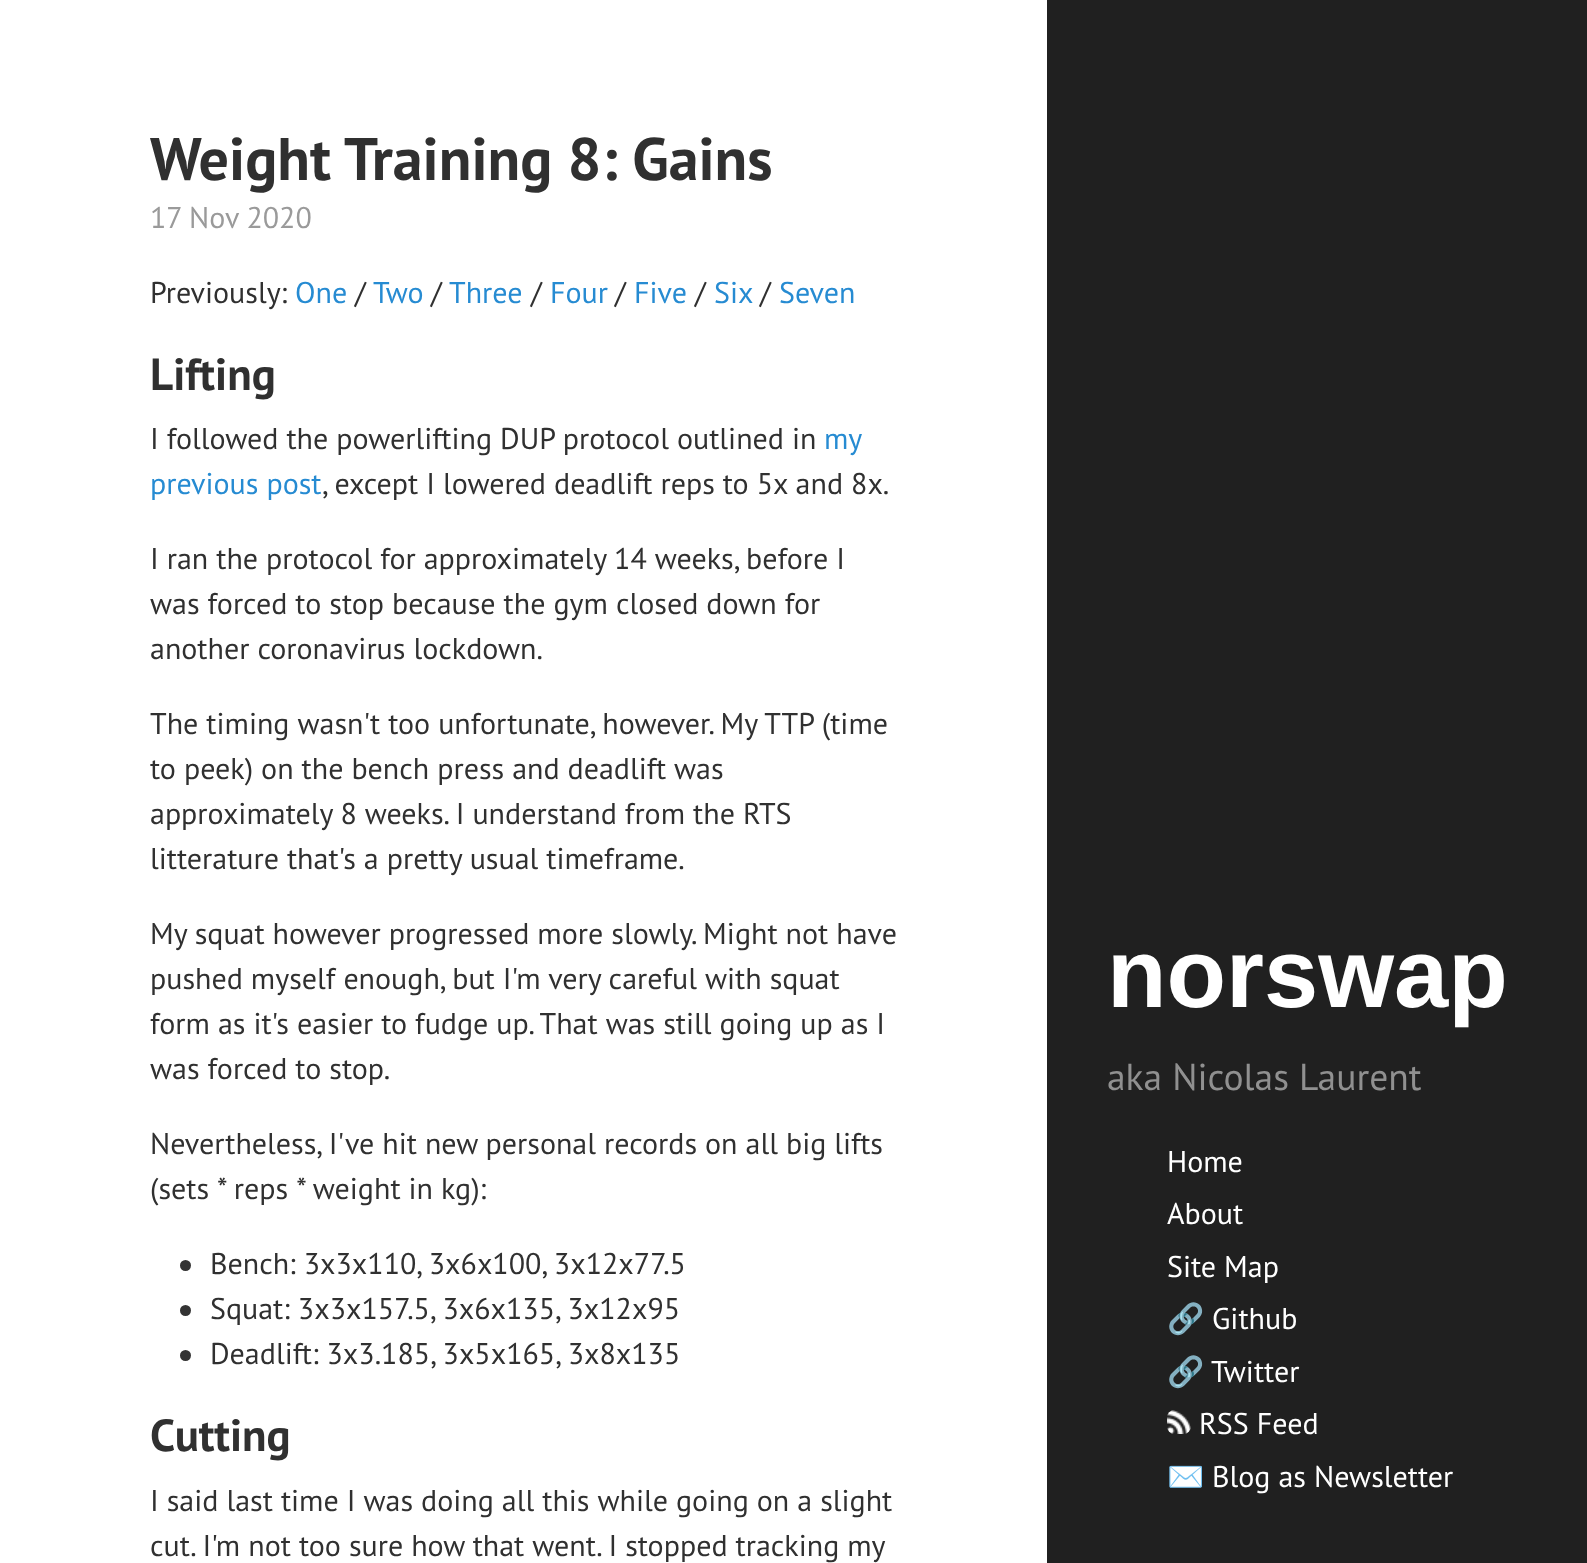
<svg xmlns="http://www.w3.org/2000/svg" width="1587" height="1563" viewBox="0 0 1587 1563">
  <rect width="100%" height="100%" fill="rgb(255,255,255)"/>
  <text x="150" y="180" font-family="PT Sans" font-size="60" font-weight="bold" fill="rgb(48,48,48)">Weight Training 8: Gains</text>
  <text x="150" y="228" font-family="PT Sans" font-size="30" fill="rgb(154,154,154)">17 Nov 2020</text>
  <text x="150" y="303" font-family="PT Sans" font-size="30" fill="rgb(48,48,48)">Previously:</text>
  <text x="295" y="303" font-family="PT Sans" font-size="30" fill="rgb(38,139,210)">One</text>
  <text x="355" y="303" font-family="PT Sans" font-size="30" fill="rgb(48,48,48)">/</text>
  <text x="373" y="303" font-family="PT Sans" font-size="30" fill="rgb(38,139,210)">Two</text>
  <text x="431" y="303" font-family="PT Sans" font-size="30" fill="rgb(48,48,48)">/</text>
  <text x="449" y="303" font-family="PT Sans" font-size="30" fill="rgb(38,139,210)">Three</text>
  <text x="531" y="303" font-family="PT Sans" font-size="30" fill="rgb(48,48,48)">/</text>
  <text x="550" y="303" font-family="PT Sans" font-size="30" fill="rgb(38,139,210)">Four</text>
  <text x="615" y="303" font-family="PT Sans" font-size="30" fill="rgb(48,48,48)">/</text>
  <text x="634" y="303" font-family="PT Sans" font-size="30" fill="rgb(38,139,210)">Five</text>
  <text x="695" y="303" font-family="PT Sans" font-size="30" fill="rgb(48,48,48)">/</text>
  <text x="714" y="303" font-family="PT Sans" font-size="30" fill="rgb(38,139,210)">Six</text>
  <text x="760" y="303" font-family="PT Sans" font-size="30" fill="rgb(48,48,48)">/</text>
  <text x="779" y="303" font-family="PT Sans" font-size="30" fill="rgb(38,139,210)">Seven</text>
  <text x="150" y="390" font-family="PT Sans" font-size="45" font-weight="bold" fill="rgb(48,48,48)">Lifting</text>
  <text x="150" y="449" font-family="PT Sans" font-size="30" fill="rgb(48,48,48)">I followed the powerlifting DUP protocol outlined in</text>
  <g font-family="PT Sans" font-size="30" fill="rgb(38,139,210)">
    <text x="824" y="449">my</text>
    <text x="150" y="494">previous post</text>
  </g>
  <g font-family="PT Sans" font-size="30" fill="rgb(48,48,48)">
    <text x="322" y="494">, except I lowered deadlift reps to 5x and 8x.</text>
    <text>
      <tspan x="150" y="569">I ran the protocol for approximately 14 weeks, before I</tspan>
      <tspan x="150" y="614">was forced to stop because the gym closed down for</tspan>
      <tspan x="150" y="659">another coronavirus lockdown.</tspan>
    </text>
    <text>
      <tspan x="150" y="734">The timing wasn't too unfortunate, however. My TTP (time</tspan>
      <tspan x="150" y="779">to peek) on the bench press and deadlift was</tspan>
      <tspan x="150" y="824">approximately 8 weeks. I understand from the RTS</tspan>
      <tspan x="150" y="869">litterature that's a pretty usual timeframe.</tspan>
    </text>
    <text>
      <tspan x="150" y="944">My squat however progressed more slowly. Might not have</tspan>
      <tspan x="150" y="989">pushed myself enough, but I'm very careful with squat</tspan>
      <tspan x="150" y="1034">form as it's easier to fudge up. That was still going up as I</tspan>
      <tspan x="150" y="1079">was forced to stop.</tspan>
    </text>
    <text>
      <tspan x="150" y="1154">Nevertheless, I've hit new personal records on all big lifts</tspan>
      <tspan x="150" y="1199">(sets * reps * weight in kg):</tspan>
    </text>
  </g>
  <circle cx="185.5" cy="1265.5" r="5.5" fill="rgb(51,51,51)"/>
  <text x="210" y="1274" font-family="PT Sans" font-size="30" fill="rgb(48,48,48)">Bench: 3x3x110, 3x6x100, 3x12x77.5</text>
  <circle cx="185.5" cy="1310.5" r="5.5" fill="rgb(51,51,51)"/>
  <text x="210" y="1319" font-family="PT Sans" font-size="30" fill="rgb(48,48,48)">Squat: 3x3x157.5, 3x6x135, 3x12x95</text>
  <circle cx="185.5" cy="1355.5" r="5.5" fill="rgb(51,51,51)"/>
  <text x="210" y="1364" font-family="PT Sans" font-size="30" fill="rgb(48,48,48)">Deadlift: 3x3.185, 3x5x165, 3x8x135</text>
  <text x="150" y="1451" font-family="PT Sans" font-size="45" font-weight="bold" fill="rgb(48,48,48)">Cutting</text>
  <g font-family="PT Sans" font-size="30" fill="rgb(48,48,48)">
    <text>
      <tspan x="150" y="1511">I said last time I was doing all this while going on a slight</tspan>
      <tspan x="150" y="1556">cut. I'm not too sure how that went. I stopped tracking my</tspan>
    </text>
  </g>
  <rect x="1047" y="0" width="540" height="1563" fill="rgb(32,32,32)"/>
  <text x="1107" y="1007" font-family="Liberation Sans" font-size="97.5" font-weight="bold" fill="rgb(255,255,255)">norswap</text>
  <text x="1107" y="1090" font-family="PT Sans" font-size="37.5" fill="rgb(144,144,144)">aka Nicolas Laurent</text>
  <g font-family="PT Sans" font-size="30" fill="rgb(255,255,255)">
    <text>
      <tspan x="1167" y="1172">Home</tspan>
      <tspan x="1167" y="1224">About</tspan>
      <tspan x="1167" y="1277">Site Map</tspan>
    </text>
  </g>
  <text x="1167" y="1329" font-family="Noto Color Emoji" font-size="30" fill="rgb(255,255,255)">🔗</text>
  <text x="1212" y="1329" font-family="PT Sans" font-size="30" fill="rgb(255,255,255)">Github</text>
  <text x="1167" y="1382" font-family="Noto Color Emoji" font-size="30" fill="rgb(255,255,255)">🔗</text>
  <text x="1211" y="1382" font-family="PT Sans" font-size="30" fill="rgb(255,255,255)">Twitter</text>
  <image x="1167" y="1410" width="24" height="24" href="pic1.png"/>
  <text x="1199" y="1434" font-family="PT Sans" font-size="30" fill="rgb(255,255,255)">RSS Feed</text>
  <text x="1167" y="1487" font-family="Noto Color Emoji" font-size="30" fill="rgb(255,255,255)">✉️</text>
  <text x="1212" y="1487" font-family="PT Sans" font-size="30" fill="rgb(255,255,255)">Blog as Newsletter</text>
</svg>
